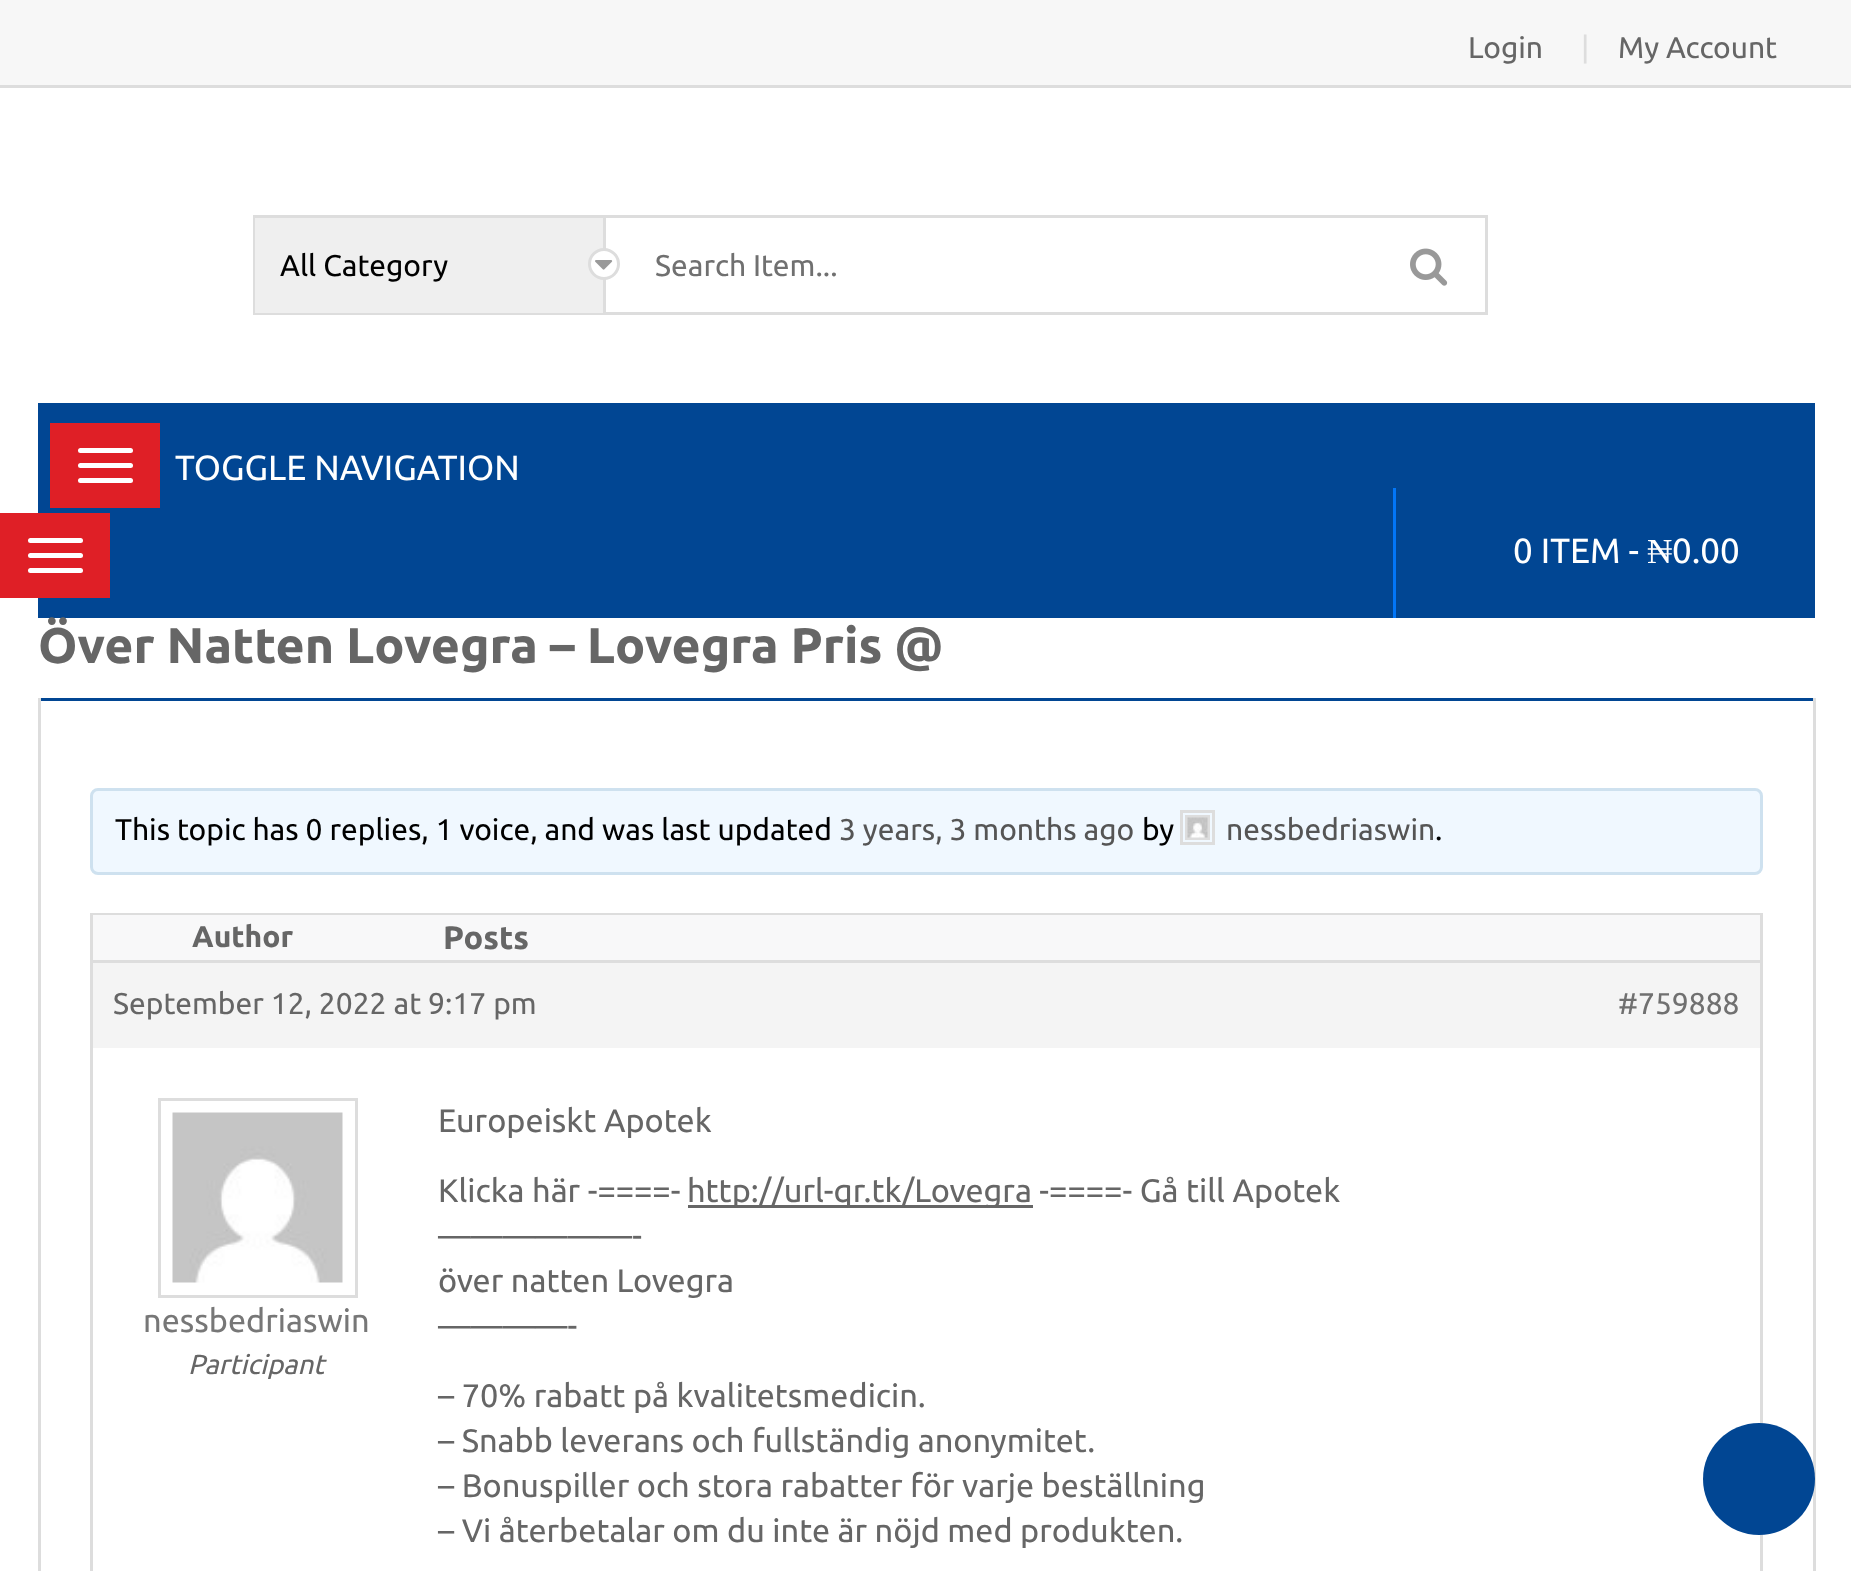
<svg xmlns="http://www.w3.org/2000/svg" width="1851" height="1571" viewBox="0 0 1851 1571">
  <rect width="100%" height="100%" fill="rgb(255,255,255)"/>
  <rect x="0" y="0" width="1851" height="85" fill="rgb(247,247,247)"/>
  <rect x="0" y="85" width="1851" height="3" fill="rgb(221,221,221)"/>
  <text x="1468" y="58" font-family="Ubuntu" font-size="30" fill="rgb(102,102,102)">Login</text>
  <text x="1581" y="58" font-family="Ubuntu" font-size="30" fill="rgb(221,221,221)">|</text>
  <text x="1618" y="58" font-family="Ubuntu" font-size="30" fill="rgb(102,102,102)">My Account</text>
  <rect x="254.5" y="216.5" width="1232" height="97" fill="none" stroke="rgb(221,221,221)" stroke-width="3"/>
  <rect x="603" y="218" width="3" height="97" fill="rgb(221,221,221)"/>
  <rect x="255" y="218" width="348" height="95" fill="rgb(239,239,239)"/>
  <text x="280" y="276" font-family="Ubuntu" font-size="30" fill="rgb(0,0,0)">All Category</text>
  <circle cx="604" cy="264" r="14.5" fill="rgb(255,255,255)" stroke="rgb(221,221,221)" stroke-width="3"/>
  <image x="595" y="260" width="18" height="10" href="pic1.png"/>
  <text x="655" y="276" font-family="Ubuntu" font-size="30" fill="rgb(112,112,112)">Search Item...</text>
  <image x="1410" y="248" width="38" height="38" href="pic2.png"/>
  <rect x="38" y="403" width="1777" height="215" fill="rgb(1,70,147)"/>
  <rect x="50" y="423" width="110" height="85" fill="rgb(223,31,38)"/>
  <rect x="78" y="448" width="55" height="5" rx="2.5" fill="rgb(255,255,255)"/>
  <rect x="78" y="463" width="55" height="5" rx="2.5" fill="rgb(255,255,255)"/>
  <text x="175" y="480" font-family="Ubuntu" font-size="35" fill="rgb(255,255,255)">TOGGLE NAVIGATION</text>
  <rect x="78" y="478" width="55" height="5" rx="2.5" fill="rgb(255,255,255)"/>
  <rect x="0" y="513" width="110" height="85" fill="rgb(223,31,38)"/>
  <rect x="28" y="538" width="55" height="5" rx="2.5" fill="rgb(255,255,255)"/>
  <rect x="28" y="553" width="55" height="5" rx="2.5" fill="rgb(255,255,255)"/>
  <rect x="28" y="568" width="55" height="5" rx="2.5" fill="rgb(255,255,255)"/>
  <rect x="1393" y="488" width="3" height="130" fill="rgb(2,118,248)"/>
  <text x="1513" y="563" font-family="Ubuntu" font-size="35" fill="rgb(255,255,255)">0 ITEM -</text>
  <text x="1647" y="563" font-family="Liberation Serif" font-size="35" fill="rgb(255,255,255)">₦</text>
  <text x="1672" y="563" font-family="Ubuntu" font-size="35" fill="rgb(255,255,255)">0.00</text>
  <text x="38" y="663" font-family="Ubuntu" font-size="50" font-weight="bold" fill="rgb(102,102,102)">Över Natten Lovegra – Lovegra Pris @</text>
  <rect x="38" y="698" width="1777" height="3" fill="rgb(1,70,147)"/>
  <rect x="1813" y="698" width="3" height="873" fill="rgb(221,221,221)"/>
  <rect x="38" y="698" width="3" height="873" fill="rgb(221,221,221)"/>
  <rect x="91.5" y="789.5" width="1670" height="84" rx="6.5" fill="rgb(240,248,255)" stroke="rgb(206,225,239)" stroke-width="3"/>
  <text x="115" y="840" font-family="Ubuntu" font-size="30" fill="rgb(0,0,0)">This topic has 0 replies, 1 voice, and was last updated</text>
  <text x="839" y="840" font-family="Ubuntu" font-size="30" fill="rgb(85,85,85)">3 years, 3 months ago</text>
  <text x="1142" y="840" font-family="Ubuntu" font-size="30" fill="rgb(0,0,0)">by</text>
  <rect x="1181.5" y="811.5" width="32" height="32" fill="none" stroke="rgb(221,221,221)" stroke-width="3"/>
  <rect x="1186.5" y="816.5" width="22" height="22" fill="none" stroke="rgb(221,221,221)" stroke-width="3"/>
  <image x="1187" y="817" width="21" height="21" href="pic3.png"/>
  <text x="1226" y="840" font-family="Ubuntu" font-size="30" fill="rgb(85,85,85)">nessbedriaswin</text>
  <text x="1435" y="840" font-family="Ubuntu" font-size="30" fill="rgb(0,0,0)">.</text>
  <rect x="91.5" y="914.5" width="1670" height="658" fill="none" stroke="rgb(221,221,221)" stroke-width="3"/>
  <rect x="93" y="915" width="1667" height="45" fill="rgb(248,248,249)"/>
  <text x="192" y="947" font-family="Ubuntu" font-size="30" font-weight="bold" fill="rgb(102,102,102)">Author</text>
  <text x="443" y="949" font-family="Ubuntu" font-size="32.5" font-weight="bold" fill="rgb(102,102,102)">Posts</text>
  <rect x="93" y="963" width="1667" height="85" fill="rgb(244,244,244)"/>
  <rect x="93" y="960" width="1667" height="3" fill="rgb(221,221,221)"/>
  <text x="113" y="1014" font-family="Ubuntu" font-size="30" fill="rgb(102,102,102)">September 12, 2022 at 9:17 pm</text>
  <text x="1618" y="1014" font-family="Ubuntu" font-size="30" fill="rgb(112,112,112)">#759888</text>
  <rect x="159.5" y="1099.5" width="197" height="197" fill="none" stroke="rgb(221,221,221)" stroke-width="3"/>
  <image x="172" y="1112" width="171" height="171" href="pic4.png"/>
  <text x="143" y="1332" font-family="Ubuntu" font-size="32.5" fill="rgb(119,119,119)">nessbedriaswin</text>
  <text x="188" y="1374" font-family="Ubuntu" font-size="27.5" font-style="italic" fill="rgb(102,102,102)">Participant</text>
  <g font-family="Ubuntu" font-size="32.5" fill="rgb(102,102,102)">
    <text x="438" y="1132">Europeiskt Apotek</text>
    <text x="438" y="1202">Klicka här -====-</text>
  </g>
  <rect x="688" y="1205" width="345" height="3" fill="rgb(102,102,102)"/>
  <g font-family="Ubuntu" font-size="32.5" fill="rgb(102,102,102)">
    <text x="687" y="1202">http://url-qr.tk/Lovegra -====- Gå till Apotek</text>
    <text>
      <tspan x="438" y="1247">——————-</tspan>
      <tspan x="438" y="1292">över natten Lovegra</tspan>
      <tspan x="438" y="1337">————-</tspan>
    </text>
    <text>
      <tspan x="438" y="1407">– 70% rabatt på kvalitetsmedicin.</tspan>
      <tspan x="438" y="1452">– Snabb leverans och fullständig anonymitet.</tspan>
      <tspan x="438" y="1497">– Bonuspiller och stora rabatter för varje beställning</tspan>
      <tspan x="438" y="1542">– Vi återbetalar om du inte är nöjd med produkten.</tspan>
    </text>
  </g>
  <circle cx="1759" cy="1479" r="56" fill="rgb(1,70,147)"/>
</svg>
